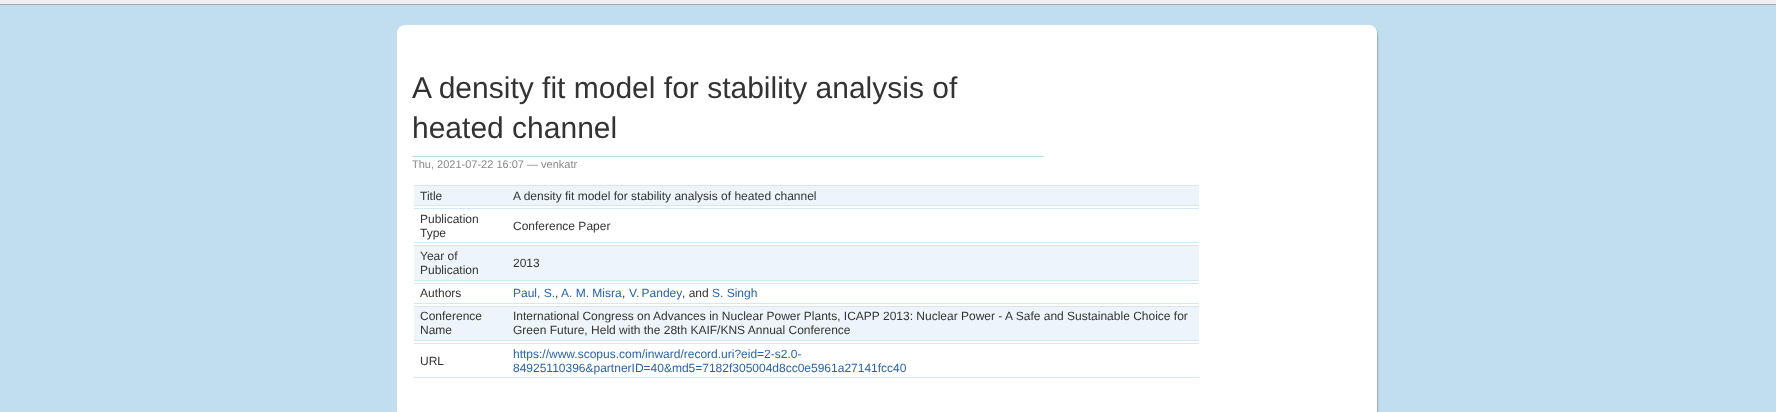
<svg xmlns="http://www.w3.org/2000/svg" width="1776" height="412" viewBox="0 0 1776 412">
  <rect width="100%" height="100%" fill="rgb(240,240,240)"/>
  <rect x="0" y="4" width="1776" height="1" fill="rgb(171,171,171)"/>
  <rect x="0" y="5" width="1776" height="407" fill="rgb(192,222,237)"/>
  <image x="397" y="25" width="982" height="11" href="pic1.png"/>
  <image x="397" y="36" width="982" height="376" href="pic2.png"/>
  <rect x="412" y="156" width="632" height="1" fill="rgb(192,222,237)"/>
  <g font-family="Liberation Sans" font-size="30" fill="rgb(51,51,51)">
    <text>
      <tspan x="412" y="98">A density fit model for stability analysis of</tspan>
      <tspan x="412" y="138">heated channel</tspan>
    </text>
  </g>
  <text x="412" y="168" font-family="Liberation Sans" font-size="11" fill="rgb(137,137,137)">Thu, 2021-07-22 16:07 — venkatr</text>
  <rect x="414" y="186" width="785" height="19" fill="rgb(237,245,250)"/>
  <rect x="414" y="185" width="785" height="1" fill="rgb(211,231,244)"/>
  <rect x="414" y="205" width="785" height="1" fill="rgb(211,231,244)"/>
  <g font-family="Liberation Sans" font-size="12" fill="rgb(51,51,51)">
    <text x="420" y="200">Title</text>
    <text x="513" y="200">A density fit model for stability analysis of heated channel</text>
  </g>
  <rect x="414" y="208" width="785" height="1" fill="rgb(211,231,244)"/>
  <rect x="414" y="242" width="785" height="1" fill="rgb(211,231,244)"/>
  <g font-family="Liberation Sans" font-size="12" fill="rgb(51,51,51)">
    <text>
      <tspan x="420" y="223">Publication</tspan>
      <tspan x="420" y="237">Type</tspan>
    </text>
    <text x="513" y="230">Conference Paper</text>
  </g>
  <rect x="414" y="246" width="785" height="34" fill="rgb(237,245,250)"/>
  <rect x="414" y="245" width="785" height="1" fill="rgb(211,231,244)"/>
  <rect x="414" y="280" width="785" height="1" fill="rgb(211,231,244)"/>
  <g font-family="Liberation Sans" font-size="12" fill="rgb(51,51,51)">
    <text>
      <tspan x="420" y="260">Year of</tspan>
      <tspan x="420" y="274">Publication</tspan>
    </text>
    <text x="513" y="267">2013</text>
  </g>
  <rect x="414" y="283" width="785" height="1" fill="rgb(211,231,244)"/>
  <rect x="414" y="303" width="785" height="1" fill="rgb(211,231,244)"/>
  <text x="420" y="297" font-family="Liberation Sans" font-size="12" fill="rgb(51,51,51)">Authors</text>
  <text x="513" y="297" font-family="Liberation Sans" font-size="12" fill="rgb(44,99,167)">Paul, S.</text>
  <text x="555" y="297" font-family="Liberation Sans" font-size="12" fill="rgb(51,51,51)">,</text>
  <text x="561" y="297" font-family="Liberation Sans" font-size="12" fill="rgb(44,99,167)">A. M. Misra</text>
  <text x="622" y="297" font-family="Liberation Sans" font-size="12" fill="rgb(51,51,51)">,</text>
  <text x="629" y="297" word-spacing="-1" font-family="Liberation Sans" font-size="12" fill="rgb(44,99,167)">V. Pandey</text>
  <text x="682" y="297" font-family="Liberation Sans" font-size="12" fill="rgb(51,51,51)">, and</text>
  <text x="712" y="297" font-family="Liberation Sans" font-size="12" fill="rgb(44,99,167)">S. Singh</text>
  <rect x="414" y="307" width="785" height="33" fill="rgb(237,245,250)"/>
  <rect x="414" y="306" width="785" height="1" fill="rgb(211,231,244)"/>
  <rect x="414" y="340" width="785" height="1" fill="rgb(211,231,244)"/>
  <g font-family="Liberation Sans" font-size="12" fill="rgb(51,51,51)">
    <text>
      <tspan x="420" y="320">Conference</tspan>
      <tspan x="420" y="334">Name</tspan>
    </text>
    <text>
      <tspan x="513" y="320">International Congress on Advances in Nuclear Power Plants, ICAPP 2013: Nuclear Power - A Safe and Sustainable Choice for</tspan>
      <tspan x="513" y="334">Green Future, Held with the 28th KAIF/KNS Annual Conference</tspan>
    </text>
  </g>
  <rect x="414" y="343" width="785" height="1" fill="rgb(211,231,244)"/>
  <rect x="414" y="377" width="785" height="1" fill="rgb(211,231,244)"/>
  <text x="420" y="365" font-family="Liberation Sans" font-size="12" fill="rgb(51,51,51)">URL</text>
  <g font-family="Liberation Sans" font-size="12" fill="rgb(44,99,167)">
    <text>
      <tspan x="513" y="358">https://www.scopus.com/inward/record.uri?eid=2-s2.0-</tspan>
      <tspan x="513" y="372">84925110396&amp;partnerID=40&amp;md5=7182f305004d8cc0e5961a27141fcc40</tspan>
    </text>
  </g>
</svg>
